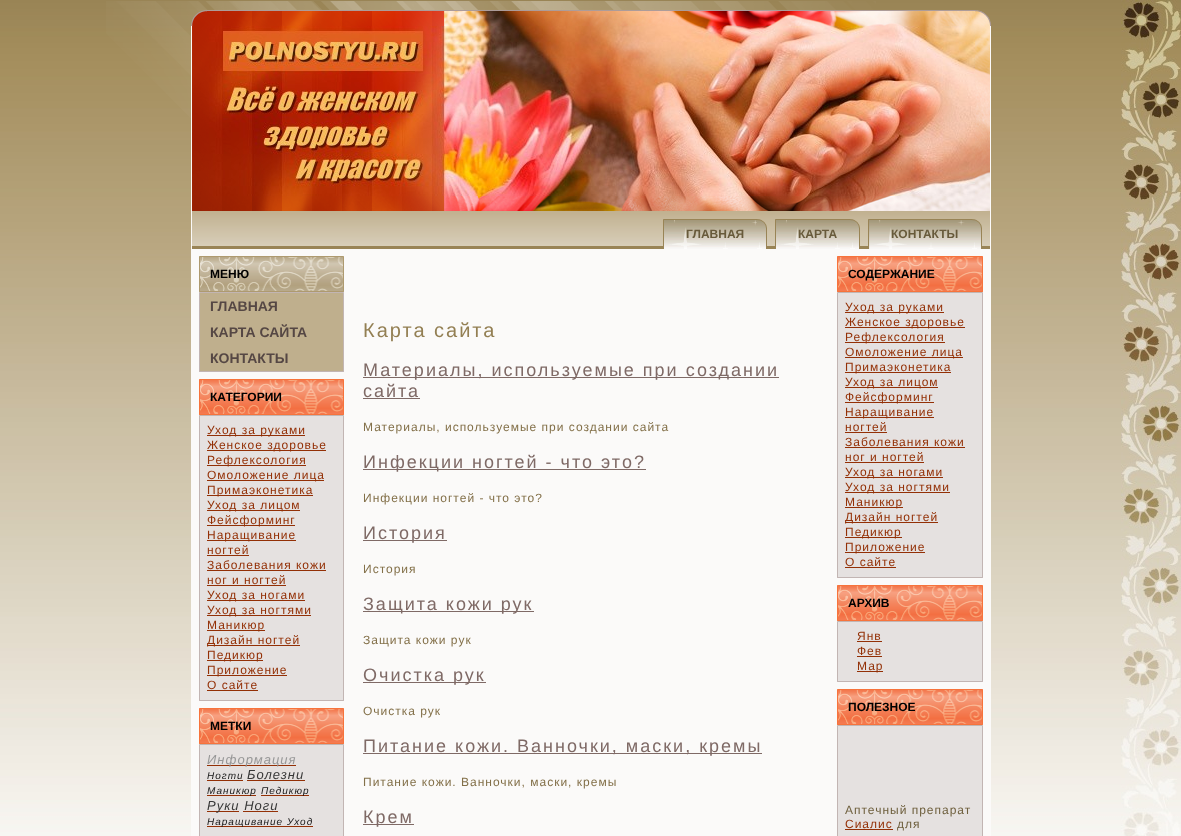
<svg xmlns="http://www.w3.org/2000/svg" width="1181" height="836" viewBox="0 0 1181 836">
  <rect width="100%" height="100%" fill="rgb(255,255,255)"/>
  <image x="0" y="0" width="1121" height="836" href="pic1.png"/>
  <image x="1121" y="0" width="60" height="836" href="pic2.png"/>
  <image x="106" y="1" width="770" height="117" href="pic3.png"/>
  <image x="191" y="10" width="16" height="16" href="pic4.png"/>
  <rect x="207" y="10" width="768" height="1" fill="rgb(173,156,153)"/>
  <image x="975" y="10" width="16" height="16" href="pic5.png"/>
  <rect x="191" y="26" width="16" height="810" fill="rgb(251,250,249)"/>
  <rect x="975" y="26" width="16" height="810" fill="rgb(251,250,249)"/>
  <image x="192" y="11" width="798" height="200" href="pic6.png"/>
  <image x="209" y="26" width="766" height="170" href="pic7.png"/>
  <image x="192" y="211" width="798" height="38" href="pic8.png"/>
  <image x="663" y="219" width="94" height="30" href="pic9.png"/>
  <image x="757" y="219" width="10" height="30" href="pic10.png"/>
  <text x="686" y="238" font-family="Liberation Sans" font-size="12" font-weight="bold" fill="rgb(104,90,59)">ГЛАВНАЯ</text>
  <image x="775" y="219" width="75" height="30" href="pic11.png"/>
  <image x="850" y="219" width="10" height="30" href="pic10.png"/>
  <text x="798" y="238" font-family="Liberation Sans" font-size="12" font-weight="bold" fill="rgb(104,90,59)">КАРТА</text>
  <image x="868" y="219" width="104" height="30" href="pic12.png"/>
  <image x="972" y="219" width="10" height="30" href="pic10.png"/>
  <text x="891" y="238" font-family="Liberation Sans" font-size="12" font-weight="bold" fill="rgb(104,90,59)">КОНТАКТЫ</text>
  <rect x="207" y="249" width="768" height="587" fill="rgb(251,250,249)"/>
  <image x="199" y="256" width="144" height="36" href="pic13.png"/>
  <image x="343" y="256" width="1" height="36" href="pic14.png"/>
  <text x="210" y="278" font-family="Liberation Sans" font-size="12" font-weight="bold" fill="rgb(0,0,0)">МЕНЮ</text>
  <rect x="199" y="292" width="1" height="1" fill="rgb(202,192,190)"/>
  <rect x="200" y="292" width="143" height="1" fill="rgb(194,181,179)"/>
  <rect x="343" y="292" width="1" height="1" fill="rgb(202,192,190)"/>
  <rect x="199" y="293" width="1" height="78" fill="rgb(194,181,179)"/>
  <rect x="200" y="293" width="143" height="78" fill="rgb(191,175,141)"/>
  <g font-family="Liberation Sans" font-size="14" font-weight="bold" fill="rgb(85,71,68)">
    <text>
      <tspan x="210" y="311">ГЛАВНАЯ</tspan>
      <tspan x="210" y="337">КАРТА САЙТА</tspan>
      <tspan x="210" y="363">КОНТАКТЫ</tspan>
    </text>
  </g>
  <rect x="343" y="293" width="1" height="78" fill="rgb(194,181,179)"/>
  <rect x="199" y="371" width="1" height="1" fill="rgb(198,184,183)"/>
  <rect x="200" y="371" width="143" height="1" fill="rgb(194,181,179)"/>
  <rect x="343" y="371" width="1" height="1" fill="rgb(198,184,183)"/>
  <image x="199" y="379" width="144" height="36" href="pic15.png"/>
  <image x="343" y="379" width="1" height="36" href="pic16.png"/>
  <text x="210" y="401" font-family="Liberation Sans" font-size="12" font-weight="bold" fill="rgb(0,0,0)">КАТЕГОРИИ</text>
  <rect x="199" y="415" width="1" height="1" fill="rgb(202,192,190)"/>
  <rect x="200" y="415" width="143" height="1" fill="rgb(194,181,179)"/>
  <rect x="343" y="415" width="1" height="1" fill="rgb(202,192,190)"/>
  <rect x="199" y="416" width="1" height="284" fill="rgb(194,181,179)"/>
  <rect x="200" y="416" width="143" height="284" fill="rgb(229,225,224)"/>
  <rect x="343" y="416" width="1" height="284" fill="rgb(194,181,179)"/>
  <rect x="207" y="435" width="98" height="1" fill="rgb(147,48,6)"/>
  <text x="207" y="434" font-family="Liberation Sans" font-size="12" letter-spacing="1" fill="rgb(147,48,6)">Уход за руками</text>
  <rect x="207" y="450" width="119" height="1" fill="rgb(147,48,6)"/>
  <text x="207" y="449" font-family="Liberation Sans" font-size="12" letter-spacing="1" fill="rgb(147,48,6)">Женское здоровье</text>
  <rect x="207" y="465" width="99" height="1" fill="rgb(147,48,6)"/>
  <text x="207" y="464" font-family="Liberation Sans" font-size="12" letter-spacing="1" fill="rgb(147,48,6)">Рефлексология</text>
  <rect x="207" y="480" width="117" height="1" fill="rgb(147,48,6)"/>
  <text x="207" y="479" font-family="Liberation Sans" font-size="12" letter-spacing="1" fill="rgb(147,48,6)">Омоложение лица</text>
  <rect x="207" y="495" width="106" height="1" fill="rgb(147,48,6)"/>
  <text x="207" y="494" font-family="Liberation Sans" font-size="12" letter-spacing="1" fill="rgb(147,48,6)">Примаэконетика</text>
  <rect x="207" y="510" width="93" height="1" fill="rgb(147,48,6)"/>
  <text x="207" y="509" font-family="Liberation Sans" font-size="12" letter-spacing="1" fill="rgb(147,48,6)">Уход за лицом</text>
  <rect x="207" y="525" width="88" height="1" fill="rgb(147,48,6)"/>
  <text x="207" y="524" font-family="Liberation Sans" font-size="12" letter-spacing="1" fill="rgb(147,48,6)">Фейсформинг</text>
  <rect x="207" y="540" width="89" height="1" fill="rgb(147,48,6)"/>
  <g font-family="Liberation Sans" font-size="12" letter-spacing="1" fill="rgb(147,48,6)">
    <text>
      <tspan x="207" y="539">Наращивание</tspan>
      <tspan x="207" y="554">ногтей</tspan>
    </text>
  </g>
  <rect x="207" y="555" width="42" height="1" fill="rgb(147,48,6)"/>
  <text x="207" y="569" font-family="Liberation Sans" font-size="12" letter-spacing="1" fill="rgb(147,48,6)">Заболевания кожи</text>
  <rect x="207" y="570" width="119" height="1" fill="rgb(147,48,6)"/>
  <text x="207" y="584" font-family="Liberation Sans" font-size="12" letter-spacing="1" fill="rgb(147,48,6)">ног и ногтей</text>
  <rect x="207" y="585" width="79" height="1" fill="rgb(147,48,6)"/>
  <rect x="207" y="600" width="98" height="1" fill="rgb(147,48,6)"/>
  <text x="207" y="599" font-family="Liberation Sans" font-size="12" letter-spacing="1" fill="rgb(147,48,6)">Уход за ногами</text>
  <rect x="207" y="615" width="104" height="1" fill="rgb(147,48,6)"/>
  <text x="207" y="614" font-family="Liberation Sans" font-size="12" letter-spacing="1" fill="rgb(147,48,6)">Уход за ногтями</text>
  <rect x="207" y="630" width="58" height="1" fill="rgb(147,48,6)"/>
  <text x="207" y="629" font-family="Liberation Sans" font-size="12" letter-spacing="1" fill="rgb(147,48,6)">Маникюр</text>
  <rect x="207" y="645" width="93" height="1" fill="rgb(147,48,6)"/>
  <text x="207" y="644" font-family="Liberation Sans" font-size="12" letter-spacing="1" fill="rgb(147,48,6)">Дизайн ногтей</text>
  <rect x="207" y="660" width="56" height="1" fill="rgb(147,48,6)"/>
  <text x="207" y="659" font-family="Liberation Sans" font-size="12" letter-spacing="1" fill="rgb(147,48,6)">Педикюр</text>
  <rect x="207" y="675" width="80" height="1" fill="rgb(147,48,6)"/>
  <g font-family="Liberation Sans" font-size="12" letter-spacing="1" fill="rgb(147,48,6)">
    <text>
      <tspan x="207" y="674">Приложение</tspan>
      <tspan x="207" y="689">О сайте</tspan>
    </text>
  </g>
  <rect x="207" y="690" width="51" height="1" fill="rgb(147,48,6)"/>
  <rect x="199" y="700" width="1" height="1" fill="rgb(198,184,183)"/>
  <rect x="200" y="700" width="143" height="1" fill="rgb(194,181,179)"/>
  <rect x="343" y="700" width="1" height="1" fill="rgb(198,184,183)"/>
  <image x="199" y="708" width="144" height="36" href="pic15.png"/>
  <image x="343" y="708" width="1" height="36" href="pic16.png"/>
  <text x="210" y="730" font-family="Liberation Sans" font-size="12" font-weight="bold" fill="rgb(0,0,0)">МЕТКИ</text>
  <rect x="199" y="744" width="1" height="1" fill="rgb(202,192,190)"/>
  <rect x="200" y="744" width="143" height="1" fill="rgb(194,181,179)"/>
  <rect x="343" y="744" width="1" height="1" fill="rgb(202,192,190)"/>
  <rect x="199" y="745" width="1" height="91" fill="rgb(194,181,179)"/>
  <rect x="200" y="745" width="143" height="91" fill="rgb(229,225,224)"/>
  <rect x="343" y="745" width="1" height="91" fill="rgb(194,181,179)"/>
  <rect x="207" y="765" width="89" height="1" fill="rgb(147,48,6)"/>
  <text x="207" y="764" font-family="Liberation Sans" font-size="13" font-style="italic" letter-spacing="1" fill="rgb(151,151,151)">Информация</text>
  <text x="207" y="779" font-family="Liberation Sans" font-size="10" font-style="italic" letter-spacing="1" fill="rgb(23,23,23)">Ногти</text>
  <rect x="207" y="780" width="36" height="1" fill="rgb(147,48,6)"/>
  <text x="247" y="779" font-family="Liberation Sans" font-size="13" font-style="italic" letter-spacing="1" fill="rgb(55,55,55)">Болезни</text>
  <rect x="247" y="780" width="58" height="1" fill="rgb(147,48,6)"/>
  <rect x="207" y="795" width="49" height="1" fill="rgb(147,48,6)"/>
  <text x="207" y="794" font-family="Liberation Sans" font-size="10" font-style="italic" letter-spacing="1" fill="rgb(23,23,23)">Маникюр</text>
  <rect x="261" y="795" width="48" height="1" fill="rgb(147,48,6)"/>
  <text x="261" y="794" font-family="Liberation Sans" font-size="10" font-style="italic" letter-spacing="1" fill="rgb(23,23,23)">Педикюр</text>
  <rect x="207" y="811" width="32" height="1" fill="rgb(147,48,6)"/>
  <text x="207" y="810" font-family="Liberation Sans" font-size="13" font-style="italic" letter-spacing="1" fill="rgb(55,55,55)">Руки Ноги</text>
  <rect x="243" y="811" width="35" height="1" fill="rgb(147,48,6)"/>
  <rect x="207" y="826" width="106" height="1" fill="rgb(147,48,6)"/>
  <text x="207" y="825" font-family="Liberation Sans" font-size="10" font-style="italic" letter-spacing="1" fill="rgb(23,23,23)">Наращивание Уход</text>
  <text x="363" y="337" font-family="Liberation Sans" font-size="20" letter-spacing="2" fill="rgb(147,127,83)">Карта сайта</text>
  <rect x="363" y="377" width="416" height="1" fill="rgb(127,106,102)"/>
  <g font-family="Liberation Sans" font-size="18" letter-spacing="2" fill="rgb(127,106,102)">
    <text>
      <tspan x="363" y="376">Материалы, используемые при создании</tspan>
      <tspan x="363" y="397">сайта</tspan>
    </text>
  </g>
  <rect x="363" y="398" width="57" height="1" fill="rgb(127,106,102)"/>
  <text x="363" y="431" font-family="Liberation Sans" font-size="12" letter-spacing="1" fill="rgb(131,112,73)">Материалы, используемые при создании сайта</text>
  <rect x="363" y="469" width="283" height="1" fill="rgb(127,106,102)"/>
  <text x="363" y="468" font-family="Liberation Sans" font-size="18" letter-spacing="2" fill="rgb(127,106,102)">Инфекции ногтей - что это?</text>
  <text x="363" y="502" font-family="Liberation Sans" font-size="12" letter-spacing="1" fill="rgb(131,112,73)">Инфекции ногтей - что это?</text>
  <rect x="363" y="540" width="84" height="1" fill="rgb(127,106,102)"/>
  <text x="363" y="539" font-family="Liberation Sans" font-size="18" letter-spacing="2" fill="rgb(127,106,102)">История</text>
  <text x="363" y="573" font-family="Liberation Sans" font-size="12" letter-spacing="1" fill="rgb(131,112,73)">История</text>
  <rect x="363" y="611" width="171" height="1" fill="rgb(127,106,102)"/>
  <text x="363" y="610" font-family="Liberation Sans" font-size="18" letter-spacing="2" fill="rgb(127,106,102)">Защита кожи рук</text>
  <text x="363" y="644" font-family="Liberation Sans" font-size="12" letter-spacing="1" fill="rgb(131,112,73)">Защита кожи рук</text>
  <rect x="363" y="682" width="123" height="1" fill="rgb(127,106,102)"/>
  <text x="363" y="681" font-family="Liberation Sans" font-size="18" letter-spacing="2" fill="rgb(127,106,102)">Очистка рук</text>
  <text x="363" y="715" font-family="Liberation Sans" font-size="12" letter-spacing="1" fill="rgb(131,112,73)">Очистка рук</text>
  <rect x="363" y="753" width="399" height="1" fill="rgb(127,106,102)"/>
  <text x="363" y="752" font-family="Liberation Sans" font-size="18" letter-spacing="2" fill="rgb(127,106,102)">Питание кожи. Ванночки, маски, кремы</text>
  <text x="363" y="786" font-family="Liberation Sans" font-size="12" letter-spacing="1" fill="rgb(131,112,73)">Питание кожи. Ванночки, маски, кремы</text>
  <rect x="363" y="824" width="51" height="1" fill="rgb(127,106,102)"/>
  <text x="363" y="823" font-family="Liberation Sans" font-size="18" letter-spacing="2" fill="rgb(127,106,102)">Крем</text>
  <image x="837" y="256" width="145" height="36" href="pic17.png"/>
  <image x="982" y="256" width="1" height="36" href="pic16.png"/>
  <text x="848" y="278" font-family="Liberation Sans" font-size="12" font-weight="bold" fill="rgb(0,0,0)">СОДЕРЖАНИЕ</text>
  <rect x="837" y="292" width="1" height="1" fill="rgb(202,192,190)"/>
  <rect x="838" y="292" width="144" height="1" fill="rgb(194,181,179)"/>
  <rect x="982" y="292" width="1" height="1" fill="rgb(202,192,190)"/>
  <rect x="837" y="293" width="1" height="284" fill="rgb(194,181,179)"/>
  <rect x="838" y="293" width="144" height="284" fill="rgb(229,225,224)"/>
  <rect x="982" y="293" width="1" height="284" fill="rgb(194,181,179)"/>
  <rect x="845" y="312" width="99" height="1" fill="rgb(147,48,6)"/>
  <text x="845" y="311" font-family="Liberation Sans" font-size="12" letter-spacing="1" fill="rgb(147,48,6)">Уход за руками</text>
  <rect x="845" y="327" width="120" height="1" fill="rgb(147,48,6)"/>
  <text x="845" y="326" font-family="Liberation Sans" font-size="12" letter-spacing="1" fill="rgb(147,48,6)">Женское здоровье</text>
  <rect x="845" y="342" width="100" height="1" fill="rgb(147,48,6)"/>
  <text x="845" y="341" font-family="Liberation Sans" font-size="12" letter-spacing="1" fill="rgb(147,48,6)">Рефлексология</text>
  <rect x="845" y="357" width="118" height="1" fill="rgb(147,48,6)"/>
  <text x="845" y="356" font-family="Liberation Sans" font-size="12" letter-spacing="1" fill="rgb(147,48,6)">Омоложение лица</text>
  <rect x="845" y="372" width="106" height="1" fill="rgb(147,48,6)"/>
  <text x="845" y="371" font-family="Liberation Sans" font-size="12" letter-spacing="1" fill="rgb(147,48,6)">Примаэконетика</text>
  <rect x="845" y="387" width="93" height="1" fill="rgb(147,48,6)"/>
  <text x="845" y="386" font-family="Liberation Sans" font-size="12" letter-spacing="1" fill="rgb(147,48,6)">Уход за лицом</text>
  <rect x="845" y="402" width="89" height="1" fill="rgb(147,48,6)"/>
  <text x="845" y="401" font-family="Liberation Sans" font-size="12" letter-spacing="1" fill="rgb(147,48,6)">Фейсформинг</text>
  <rect x="845" y="417" width="89" height="1" fill="rgb(147,48,6)"/>
  <g font-family="Liberation Sans" font-size="12" letter-spacing="1" fill="rgb(147,48,6)">
    <text>
      <tspan x="845" y="416">Наращивание</tspan>
      <tspan x="845" y="431">ногтей</tspan>
    </text>
  </g>
  <rect x="845" y="432" width="42" height="1" fill="rgb(147,48,6)"/>
  <text x="845" y="446" font-family="Liberation Sans" font-size="12" letter-spacing="1" fill="rgb(147,48,6)">Заболевания кожи</text>
  <rect x="845" y="447" width="120" height="1" fill="rgb(147,48,6)"/>
  <text x="845" y="461" font-family="Liberation Sans" font-size="12" letter-spacing="1" fill="rgb(147,48,6)">ног и ногтей</text>
  <rect x="845" y="462" width="79" height="1" fill="rgb(147,48,6)"/>
  <rect x="845" y="477" width="98" height="1" fill="rgb(147,48,6)"/>
  <text x="845" y="476" font-family="Liberation Sans" font-size="12" letter-spacing="1" fill="rgb(147,48,6)">Уход за ногами</text>
  <rect x="845" y="492" width="105" height="1" fill="rgb(147,48,6)"/>
  <text x="845" y="491" font-family="Liberation Sans" font-size="12" letter-spacing="1" fill="rgb(147,48,6)">Уход за ногтями</text>
  <rect x="845" y="507" width="58" height="1" fill="rgb(147,48,6)"/>
  <text x="845" y="506" font-family="Liberation Sans" font-size="12" letter-spacing="1" fill="rgb(147,48,6)">Маникюр</text>
  <rect x="845" y="522" width="93" height="1" fill="rgb(147,48,6)"/>
  <text x="845" y="521" font-family="Liberation Sans" font-size="12" letter-spacing="1" fill="rgb(147,48,6)">Дизайн ногтей</text>
  <rect x="845" y="537" width="57" height="1" fill="rgb(147,48,6)"/>
  <text x="845" y="536" font-family="Liberation Sans" font-size="12" letter-spacing="1" fill="rgb(147,48,6)">Педикюр</text>
  <rect x="845" y="552" width="80" height="1" fill="rgb(147,48,6)"/>
  <g font-family="Liberation Sans" font-size="12" letter-spacing="1" fill="rgb(147,48,6)">
    <text>
      <tspan x="845" y="551">Приложение</tspan>
      <tspan x="845" y="566">О сайте</tspan>
    </text>
  </g>
  <rect x="845" y="567" width="51" height="1" fill="rgb(147,48,6)"/>
  <rect x="837" y="577" width="1" height="1" fill="rgb(198,184,183)"/>
  <rect x="838" y="577" width="144" height="1" fill="rgb(194,181,179)"/>
  <rect x="982" y="577" width="1" height="1" fill="rgb(198,184,183)"/>
  <image x="837" y="585" width="145" height="36" href="pic17.png"/>
  <image x="982" y="585" width="1" height="36" href="pic16.png"/>
  <text x="848" y="607" font-family="Liberation Sans" font-size="12" font-weight="bold" fill="rgb(0,0,0)">АРХИВ</text>
  <rect x="837" y="621" width="1" height="1" fill="rgb(202,192,190)"/>
  <rect x="838" y="621" width="144" height="1" fill="rgb(194,181,179)"/>
  <rect x="982" y="621" width="1" height="1" fill="rgb(202,192,190)"/>
  <rect x="837" y="622" width="1" height="59" fill="rgb(194,181,179)"/>
  <rect x="838" y="622" width="144" height="59" fill="rgb(229,225,224)"/>
  <rect x="982" y="622" width="1" height="59" fill="rgb(194,181,179)"/>
  <text x="857" y="640" font-family="Liberation Sans" font-size="12" letter-spacing="1" fill="rgb(147,48,6)">Янв</text>
  <rect x="857" y="641" width="25" height="1" fill="rgb(147,48,6)"/>
  <text x="857" y="655" font-family="Liberation Sans" font-size="12" letter-spacing="1" fill="rgb(147,48,6)">Фев</text>
  <rect x="857" y="656" width="25" height="1" fill="rgb(147,48,6)"/>
  <rect x="857" y="671" width="26" height="1" fill="rgb(147,48,6)"/>
  <text x="857" y="670" font-family="Liberation Sans" font-size="12" letter-spacing="1" fill="rgb(147,48,6)">Мар</text>
  <rect x="837" y="681" width="1" height="1" fill="rgb(198,184,183)"/>
  <rect x="838" y="681" width="144" height="1" fill="rgb(194,181,179)"/>
  <rect x="982" y="681" width="1" height="1" fill="rgb(198,184,183)"/>
  <image x="837" y="689" width="145" height="36" href="pic17.png"/>
  <image x="982" y="689" width="1" height="36" href="pic16.png"/>
  <text x="848" y="711" font-family="Liberation Sans" font-size="12" font-weight="bold" fill="rgb(0,0,0)">ПОЛЕЗНОЕ</text>
  <rect x="837" y="725" width="1" height="1" fill="rgb(202,192,190)"/>
  <rect x="838" y="725" width="144" height="1" fill="rgb(194,181,179)"/>
  <rect x="982" y="725" width="1" height="1" fill="rgb(202,192,190)"/>
  <rect x="837" y="726" width="1" height="110" fill="rgb(194,181,179)"/>
  <rect x="838" y="726" width="144" height="110" fill="rgb(229,225,224)"/>
  <rect x="982" y="726" width="1" height="110" fill="rgb(194,181,179)"/>
  <text x="845" y="814" font-family="Liberation Sans" font-size="12" letter-spacing="1" fill="rgb(111,96,62)">Аптечный препарат</text>
  <text x="845" y="828" font-family="Liberation Sans" font-size="12" letter-spacing="1" fill="rgb(147,48,6)">Сиалис</text>
  <rect x="845" y="829" width="48" height="1" fill="rgb(147,48,6)"/>
  <text x="897" y="828" font-family="Liberation Sans" font-size="12" letter-spacing="1" fill="rgb(111,96,62)">для</text>
</svg>
